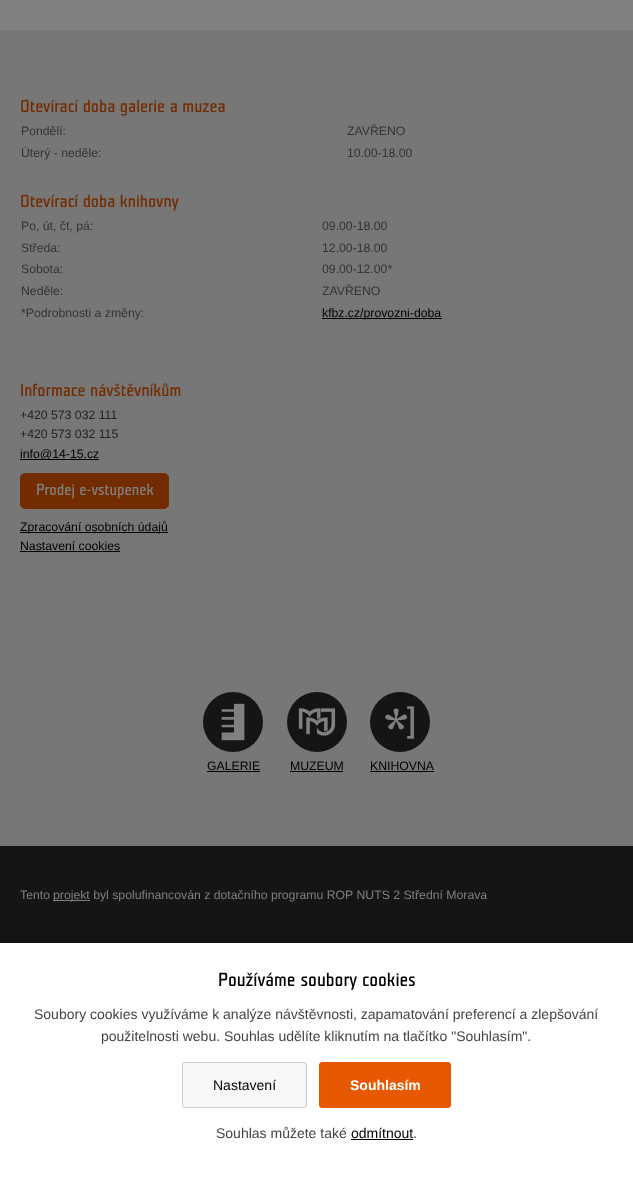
<svg xmlns="http://www.w3.org/2000/svg" width="633" height="1179" viewBox="0 0 633 1179">
  <rect width="100%" height="100%" fill="rgb(128,128,128)"/>
  <rect x="0" y="30" width="633" height="816" fill="rgb(119,119,119)"/>
  <text x="20" y="112" font-family="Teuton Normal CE" font-size="17.5" fill="rgb(115,44,1)">Otevírací doba galerie a muzea</text>
  <g font-family="Liberation Sans" font-size="12.25" fill="rgb(51,51,51)">
    <text x="21" y="135">Pondělí:</text>
    <text x="347" y="135">ZAVŘENO</text>
    <text x="21" y="157">Úterý - neděle:</text>
    <text x="347" y="157">10.00-18.00</text>
  </g>
  <text x="20" y="207" font-family="Teuton Normal CE" font-size="17.5" fill="rgb(115,44,1)">Otevírací doba knihovny</text>
  <g font-family="Liberation Sans" font-size="12.25" fill="rgb(51,51,51)">
    <text x="21" y="230">Po, út, čt, pá:</text>
    <text x="322" y="230">09.00-18.00</text>
    <text x="21" y="252">Středa:</text>
    <text x="322" y="252">12.00-18.00</text>
    <text x="21" y="273">Sobota:</text>
    <text x="322" y="273">09.00-12.00*</text>
    <text x="21" y="295">Neděle:</text>
    <text x="322" y="295">ZAVŘENO</text>
    <text x="21" y="317">*Podrobnosti a změny:</text>
  </g>
  <rect x="322" y="318" width="120" height="1" fill="rgb(0,0,0)"/>
  <text x="322" y="317" font-family="Liberation Sans" font-size="12.25" fill="rgb(0,0,0)">kfbz.cz/provozni-doba</text>
  <text x="20" y="396" font-family="Teuton Normal CE" font-size="17.5" fill="rgb(115,44,1)">Informace návštěvníkům</text>
  <g font-family="Liberation Sans" font-size="12.25" fill="rgb(34,34,34)">
    <text>
      <tspan x="20" y="419">+420 573 032 111</tspan>
      <tspan x="20" y="438">+420 573 032 115</tspan>
    </text>
  </g>
  <rect x="20" y="459" width="79" height="1" fill="rgb(0,0,0)"/>
  <text x="20" y="458" font-family="Liberation Sans" font-size="12.25" fill="rgb(0,0,0)">info@14-15.cz</text>
  <rect x="20.5" y="473.5" width="148" height="35" rx="4.5" fill="rgb(115,44,1)" stroke="rgb(115,44,1)"/>
  <text x="36" y="495" font-family="Teuton Normal CE" font-size="16" fill="rgb(128,128,128)">Prodej e-vstupenek</text>
  <rect x="20" y="532" width="148" height="1" fill="rgb(0,0,0)"/>
  <g font-family="Liberation Sans" font-size="12.25" fill="rgb(0,0,0)">
    <text>
      <tspan x="20" y="531">Zpracování osobních údajů</tspan>
      <tspan x="20" y="550">Nastavení cookies</tspan>
    </text>
  </g>
  <rect x="20" y="551" width="100" height="1" fill="rgb(0,0,0)"/>
  <circle cx="233" cy="722" r="30" fill="rgb(21,21,21)"/>
  <image x="221" y="703" width="24" height="38" href="pic1.png"/>
  <text x="207" y="770" font-family="Liberation Sans" font-size="12.25" fill="rgb(0,0,0)">GALERIE</text>
  <rect x="207" y="771" width="53" height="1" fill="rgb(0,0,0)"/>
  <circle cx="317" cy="722" r="30" fill="rgb(21,21,21)"/>
  <image x="298" y="708" width="38" height="28" href="pic2.png"/>
  <text x="290" y="770" font-family="Liberation Sans" font-size="12.25" fill="rgb(0,0,0)">MUZEUM</text>
  <rect x="290" y="771" width="53" height="1" fill="rgb(0,0,0)"/>
  <circle cx="400" cy="722" r="30" fill="rgb(21,21,21)"/>
  <image x="385" y="706" width="30" height="33" href="pic3.png"/>
  <text x="370" y="770" font-family="Liberation Sans" font-size="12.25" fill="rgb(0,0,0)">KNIHOVNA</text>
  <rect x="370" y="771" width="64" height="1" fill="rgb(0,0,0)"/>
  <rect x="0" y="846" width="633" height="97" fill="rgb(21,21,21)"/>
  <text x="20" y="899" font-family="Liberation Sans" font-size="12.25" fill="rgb(128,128,128)">Tento</text>
  <rect x="53" y="900" width="37" height="1" fill="rgb(128,128,128)"/>
  <text x="53" y="899" font-family="Liberation Sans" font-size="12.25" fill="rgb(128,128,128)">projekt byl spolufinancován z dotačního programu ROP NUTS 2 Střední Morava</text>
  <rect x="0" y="941" width="633" height="236" fill="rgba(0,0,0,0.25)" filter="blur(4px)"/>
  <rect x="0" y="943" width="633" height="236" fill="rgb(255,255,255)"/>
  <text x="218" y="986" font-family="Teuton Normal CE" font-size="18.9" fill="rgb(0,0,0)">Používáme soubory cookies</text>
  <g font-family="Liberation Sans" font-size="14" fill="rgb(68,68,68)">
    <text x="34" y="1019">Soubory cookies využíváme k analýze návštěvnosti, zapamatování preferencí a zlepšování</text>
    <text x="101" y="1041">použitelnosti webu. Souhlas udělíte kliknutím na tlačítko "Souhlasím".</text>
  </g>
  <rect x="182.5" y="1062.5" width="124" height="45" rx="2.5" fill="rgb(247,247,247)" stroke="rgb(204,204,204)"/>
  <text x="213" y="1090" font-family="Liberation Sans" font-size="14" fill="rgb(0,0,0)">Nastavení</text>
  <rect x="319.5" y="1062.5" width="131" height="45" rx="2.5" fill="rgb(230,88,2)" stroke="rgb(230,88,2)"/>
  <text x="350" y="1090" font-family="Liberation Sans" font-size="14" font-weight="bold" fill="rgb(255,255,255)">Souhlasím</text>
  <text x="216" y="1138" font-family="Liberation Sans" font-size="14" fill="rgb(68,68,68)">Souhlas můžete také</text>
  <text x="351" y="1138" font-family="Liberation Sans" font-size="14" fill="rgb(0,0,0)">odmítnout</text>
  <rect x="351" y="1139" width="62" height="1" fill="rgb(0,0,0)"/>
  <text x="413" y="1138" font-family="Liberation Sans" font-size="14" fill="rgb(68,68,68)">.</text>
</svg>
